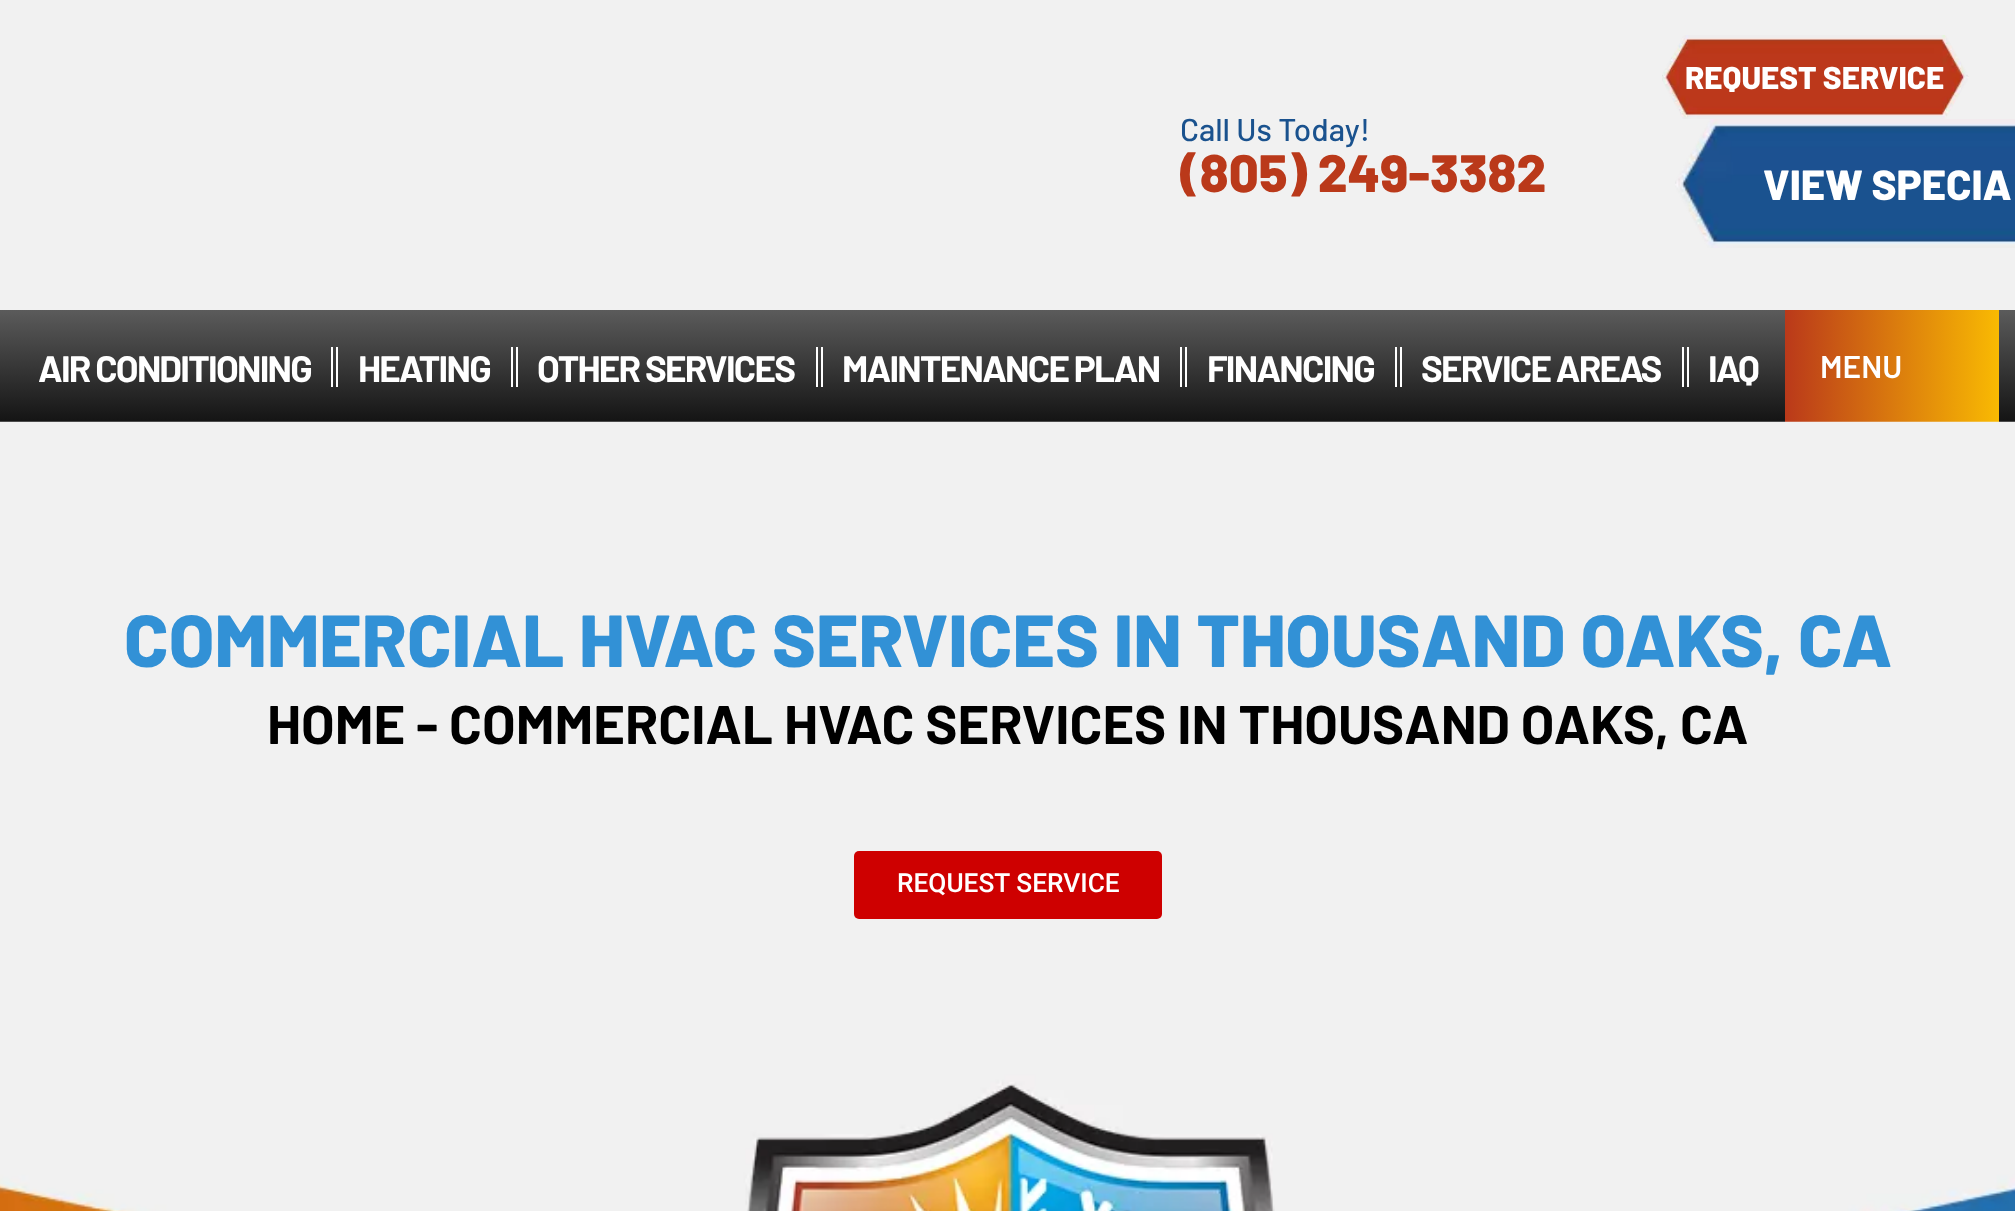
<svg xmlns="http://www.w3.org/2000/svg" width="2015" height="1211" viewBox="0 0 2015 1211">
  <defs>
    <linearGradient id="g1" gradientUnits="userSpaceOnUse" x1="1008" y1="310" x2="1008" y2="422"><stop offset="0" stop-color="rgb(91,91,91)"/><stop offset="1" stop-color="rgb(20,20,20)"/></linearGradient>
    <linearGradient id="g2" gradientUnits="userSpaceOnUse" x1="1785" y1="366" x2="1999" y2="366"><stop offset="0" stop-color="rgb(186,57,26)"/><stop offset="1" stop-color="rgb(249,186,2)"/></linearGradient>
  </defs>
  <rect width="100%" height="100%" fill="rgb(241,241,241)"/>
  <text x="1180" y="141" font-family="Barlow" font-size="31.5" font-weight="500" fill="rgb(26,82,142)">Call Us Today!</text>
  <text x="1180" y="192" font-family="Barlow" font-size="52.5" font-weight="800" fill="rgb(186,57,26)">(805) 249-3382</text>
  <image x="1662" y="35" width="307" height="84" href="pic1.png"/>
  <text x="1685" y="89" font-family="Barlow" font-size="31.5" font-weight="800" fill="rgb(255,255,255)">REQUEST SERVICE</text>
  <image x="1675" y="119" width="340" height="129" href="pic2.png"/>
  <text x="1763" y="200" font-family="Barlow" font-size="42" font-weight="800" fill="rgb(255,255,255)">VIEW SPECIA</text>
  <rect x="0" y="310" width="2015" height="112" fill="url(#g1)"/>
  <rect x="331" y="347" width="2" height="40" fill="rgb(255,255,255)"/>
  <rect x="336" y="347" width="2" height="40" fill="rgb(255,255,255)"/>
  <text x="38" y="382" font-family="Barlow" font-size="36.75" font-weight="bold" letter-spacing="-1.75" fill="rgb(255,255,255)">AIR CONDITIONING</text>
  <rect x="511" y="347" width="2" height="40" fill="rgb(255,255,255)"/>
  <rect x="516" y="347" width="2" height="40" fill="rgb(255,255,255)"/>
  <text x="358" y="382" font-family="Barlow" font-size="36.75" font-weight="bold" letter-spacing="-1.75" fill="rgb(255,255,255)">HEATING</text>
  <rect x="816" y="347" width="2" height="40" fill="rgb(255,255,255)"/>
  <rect x="821" y="347" width="2" height="40" fill="rgb(255,255,255)"/>
  <text x="537" y="382" font-family="Barlow" font-size="36.75" font-weight="bold" letter-spacing="-1.75" fill="rgb(255,255,255)">OTHER SERVICES</text>
  <rect x="1180" y="347" width="2" height="40" fill="rgb(255,255,255)"/>
  <rect x="1185" y="347" width="2" height="40" fill="rgb(255,255,255)"/>
  <text x="842" y="382" font-family="Barlow" font-size="36.75" font-weight="bold" letter-spacing="-1.75" fill="rgb(255,255,255)">MAINTENANCE PLAN</text>
  <rect x="1395" y="347" width="2" height="40" fill="rgb(255,255,255)"/>
  <rect x="1400" y="347" width="2" height="40" fill="rgb(255,255,255)"/>
  <text x="1207" y="382" font-family="Barlow" font-size="36.75" font-weight="bold" letter-spacing="-1.75" fill="rgb(255,255,255)">FINANCING</text>
  <rect x="1682" y="347" width="2" height="40" fill="rgb(255,255,255)"/>
  <rect x="1687" y="347" width="2" height="40" fill="rgb(255,255,255)"/>
  <g font-family="Barlow" font-size="36.75" font-weight="bold" letter-spacing="-1.75" fill="rgb(255,255,255)">
    <text x="1421" y="382">SERVICE AREAS</text>
    <text x="1708" y="382">IAQ</text>
  </g>
  <rect x="1785" y="310" width="214" height="112" fill="url(#g2)"/>
  <text x="1820" y="378" font-family="Barlow" font-size="31.5" font-weight="600" fill="rgb(255,255,255)">MENU</text>
  <image x="0" y="421" width="2015" height="790" href="pic3.png"/>
  <text x="124" y="667" font-family="Barlow" font-size="73.5" font-weight="800" fill="rgb(50,145,214)">COMMERCIAL HVAC SERVICES IN THOUSAND OAKS, CA</text>
  <text x="267" y="744" font-family="Barlow" font-size="54.25" font-weight="bold" fill="rgb(0,0,0)">HOME - COMMERCIAL HVAC SERVICES IN THOUSAND OAKS, CA</text>
  <rect x="854" y="851" width="308" height="68" rx="5" fill="rgb(206,0,0)"/>
  <text x="897" y="892" font-family="Roboto" font-size="26.25" font-weight="500" fill="rgb(255,255,255)">REQUEST SERVICE</text>
</svg>
